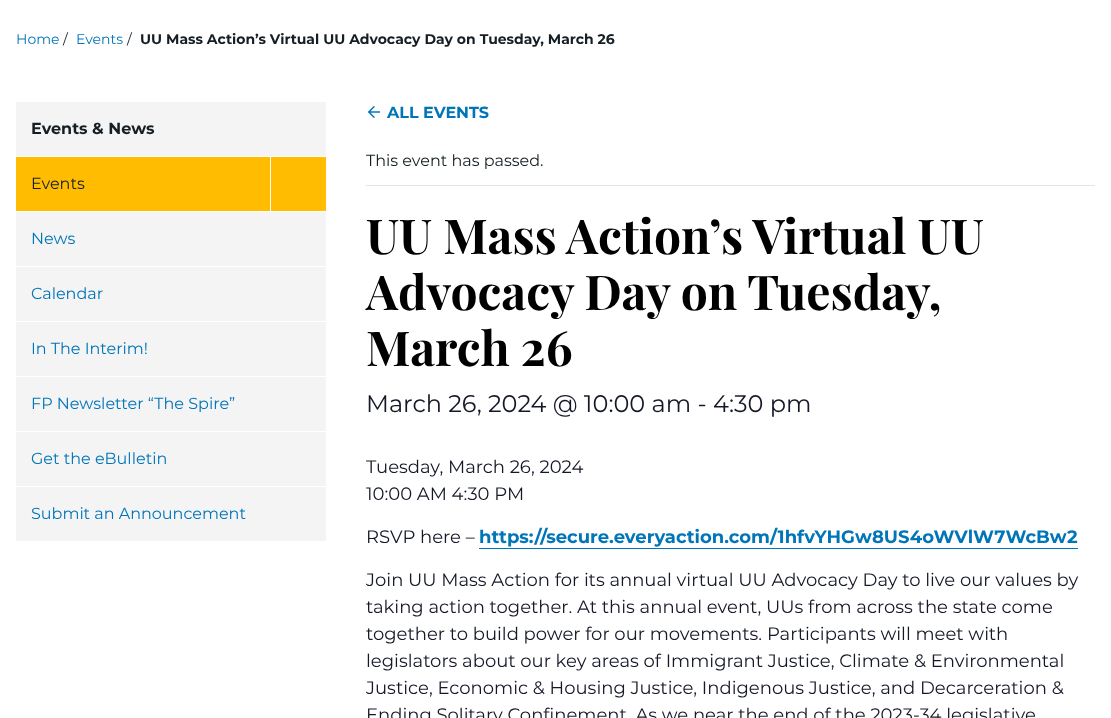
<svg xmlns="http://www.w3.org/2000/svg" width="1111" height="718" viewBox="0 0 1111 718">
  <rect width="100%" height="100%" fill="rgb(255,255,255)"/>
  <text x="16" y="44" font-family="Montserrat" font-size="14" fill="rgb(0,117,184)">Home</text>
  <text x="63" y="44" font-family="Montserrat" font-size="14" fill="rgb(21,31,35)">/</text>
  <text x="76" y="44" font-family="Montserrat" font-size="14" fill="rgb(0,117,184)">Events</text>
  <text x="127" y="44" font-family="Montserrat" font-size="14" fill="rgb(21,31,35)">/</text>
  <text x="140" y="44" font-family="Montserrat" font-size="14" font-weight="bold" fill="rgb(21,31,35)">UU Mass Action’s Virtual UU Advocacy Day on Tuesday, March 26</text>
  <rect x="16" y="102" width="310" height="439" fill="rgb(244,244,244)"/>
  <text x="31" y="134" font-family="Montserrat" font-size="16" font-weight="bold" fill="rgb(21,31,35)">Events &amp; News</text>
  <rect x="16" y="156" width="310" height="1" fill="rgb(255,255,255)"/>
  <rect x="16" y="157" width="310" height="54" fill="rgb(255,188,0)"/>
  <text x="31" y="189" font-family="Montserrat" font-size="16" fill="rgb(21,31,35)">Events</text>
  <rect x="270" y="157" width="1" height="56" fill="rgb(255,255,255)"/>
  <rect x="16" y="211" width="310" height="1" fill="rgb(255,255,255)"/>
  <text x="31" y="244" font-family="Montserrat" font-size="16" fill="rgb(0,117,184)">News</text>
  <rect x="16" y="266" width="310" height="1" fill="rgb(255,255,255)"/>
  <text x="31" y="299" font-family="Montserrat" font-size="16" fill="rgb(0,117,184)">Calendar</text>
  <rect x="16" y="321" width="310" height="1" fill="rgb(255,255,255)"/>
  <text x="31" y="354" font-family="Montserrat" font-size="16" fill="rgb(0,117,184)">In The Interim!</text>
  <rect x="16" y="376" width="310" height="1" fill="rgb(255,255,255)"/>
  <text x="31" y="409" font-family="Montserrat" font-size="16" fill="rgb(0,117,184)">FP Newsletter “The Spire”</text>
  <rect x="16" y="431" width="310" height="1" fill="rgb(255,255,255)"/>
  <text x="31" y="464" font-family="Montserrat" font-size="16" fill="rgb(0,117,184)">Get the eBulletin</text>
  <rect x="16" y="486" width="310" height="1" fill="rgb(255,255,255)"/>
  <text x="31" y="519" font-family="Montserrat" font-size="16" fill="rgb(0,117,184)">Submit an Announcement</text>
  <image x="368" y="106" width="13" height="12" href="pic1.png"/>
  <text x="387" y="118" font-family="Montserrat" font-size="16" font-weight="bold" fill="rgb(0,117,184)">ALL EVENTS</text>
  <rect x="366" y="185" width="729" height="1" fill="rgb(228,228,228)"/>
  <text x="366" y="166" font-family="Montserrat" font-size="16" fill="rgb(21,31,35)">This event has passed.</text>
  <g font-family="Playfair Display" font-size="48" font-weight="bold" fill="rgb(0,0,0)">
    <text>
      <tspan x="366" y="254">UU Mass Action’s Virtual UU</tspan>
      <tspan x="366" y="310">Advocacy Day on Tuesday,</tspan>
      <tspan x="366" y="366">March 26</tspan>
    </text>
  </g>
  <text x="366" y="412" font-family="Montserrat" font-size="24" fill="rgb(20,24,39)">March 26, 2024 @ 10:00 am - 4:30 pm</text>
  <g font-family="Montserrat" font-size="18" fill="rgb(20,24,39)">
    <text>
      <tspan x="366" y="473">Tuesday, March 26, 2024</tspan>
      <tspan x="366" y="500">10:00 AM 4:30 PM</tspan>
    </text>
    <text x="366" y="543">RSVP here –</text>
  </g>
  <text x="479" y="543" font-family="Montserrat" font-size="18" font-weight="bold" fill="rgb(0,117,184)">https://secure.everyaction.com/1hfvYHGw8US4oWVlW7WcBw2</text>
  <rect x="479" y="548" width="599" height="1" fill="rgb(0,117,184)"/>
  <g font-family="Montserrat" font-size="18" fill="rgb(20,24,39)">
    <text>
      <tspan x="366" y="586">Join UU Mass Action for its annual virtual UU Advocacy Day to live our values by</tspan>
      <tspan x="366" y="613">taking action together. At this annual event, UUs from across the state come</tspan>
      <tspan x="366" y="640">together to build power for our movements. Participants will meet with</tspan>
      <tspan x="366" y="667">legislators about our key areas of Immigrant Justice, Climate &amp; Environmental</tspan>
      <tspan x="366" y="694">Justice, Economic &amp; Housing Justice, Indigenous Justice, and Decarceration &amp;</tspan>
      <tspan x="366" y="721">Ending Solitary Confinement. As we near the end of the 2023-34 legislative</tspan>
    </text>
  </g>
</svg>
